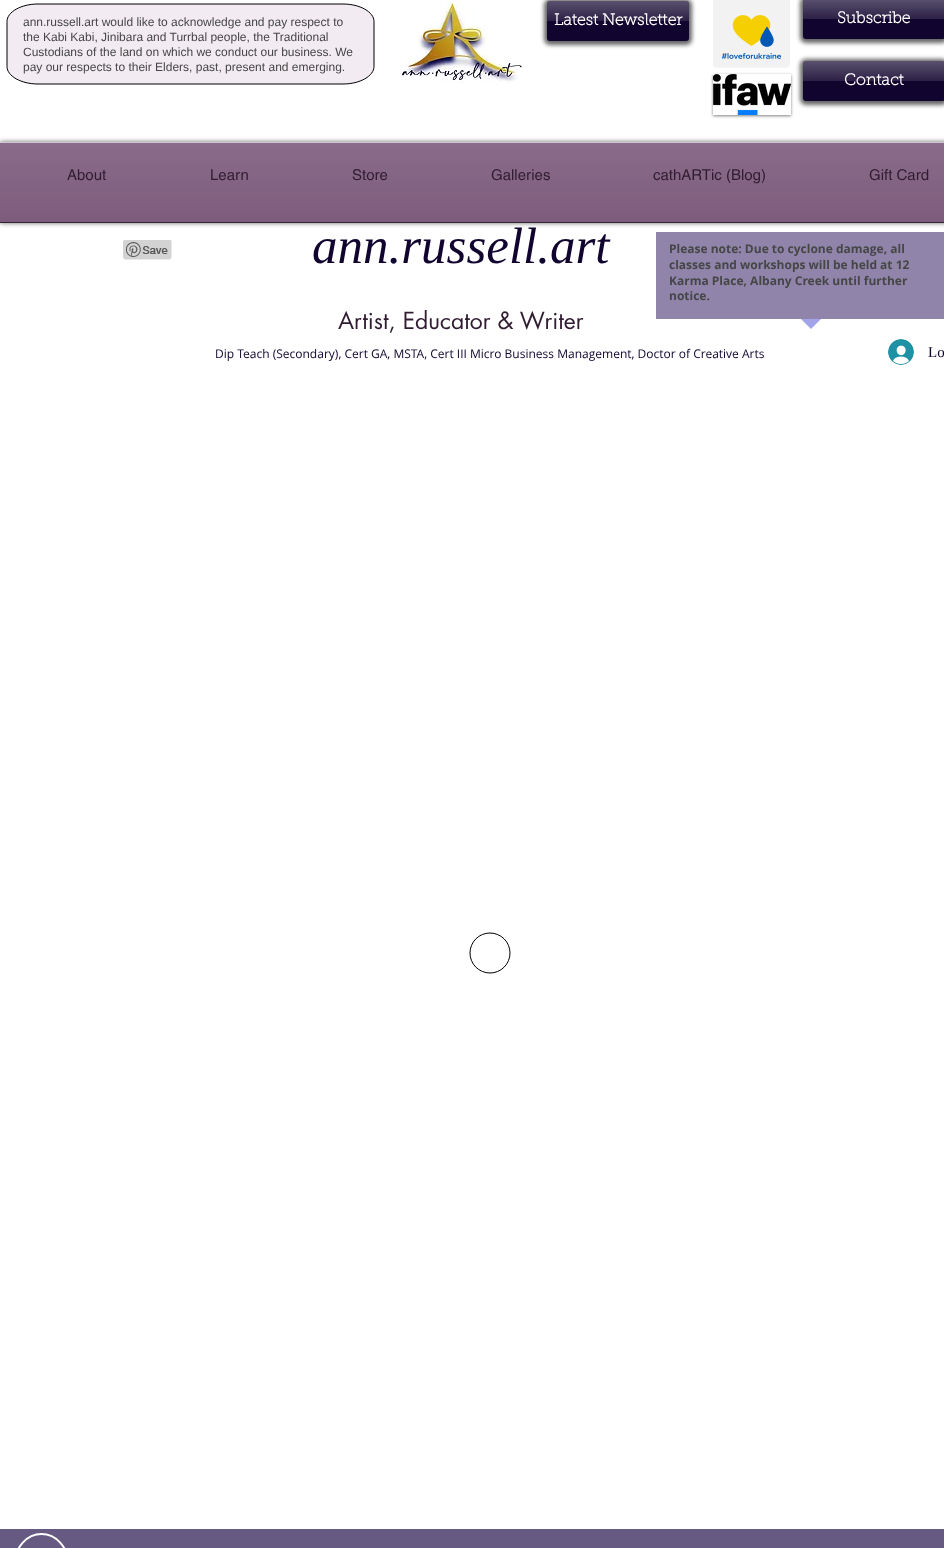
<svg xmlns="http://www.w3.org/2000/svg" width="944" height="1548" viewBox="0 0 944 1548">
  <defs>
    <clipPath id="clip1"><path d="M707 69H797V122H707ZM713 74H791V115H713Z" clip-rule="evenodd"/></clipPath>
  </defs>
  <rect width="100%" height="100%" fill="rgb(255,255,255)"/>
  <path d="M343 84H38C21 84 7 76 7 67V21C7 12 21 4 38 4H343C360 4 374 12 374 21V67C374 76 360 84 343 84Z" fill="rgb(242,235,242)"/>
  <path d="M343 84H38C21 84 7 76 7 66.5V21.5C7 12 21 4 38 4H343C360 4 374 12 374 21.5V66.5C374 76 360 84 343 84Z" fill="none" stroke="rgb(0,0,0)"/>
  <image x="401" y="0" width="122" height="83" href="pic1.png"/>
  <rect x="544" y="-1" width="148" height="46" rx="6" fill="rgba(0,0,0,0.6)" filter="blur(2px)"/>
  <rect x="547" y="1" width="142" height="40" rx="3" fill="rgb(17,4,46)"/>
  <image x="547" y="1" width="142" height="20" href="pic2.png"/>
  <text x="554" y="25" font-family="'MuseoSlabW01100'" font-size="16" font-weight="bold" fill="rgb(255,255,255)">Latest Newsletter</text>
  <image x="713" y="0" width="77" height="68" href="pic3.png"/>
  <rect x="800" y="-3" width="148" height="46" rx="6" fill="rgba(0,0,0,0.6)" filter="blur(2px)"/>
  <rect x="803" y="-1" width="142" height="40" rx="3" fill="rgb(17,4,46)"/>
  <image x="803" y="0" width="141" height="19" href="pic4.png"/>
  <text x="837" y="23" font-family="'MuseoSlabW01100'" font-size="16" font-weight="bold" fill="rgb(255,255,255)">Subscribe</text>
  <g font-family="Liberation Sans" font-size="12" fill="rgb(70,70,70)">
    <text>
      <tspan x="23" y="26">ann.russell.art would like to acknowledge and pay respect to</tspan>
      <tspan x="23" y="41">the Kabi Kabi, Jinibara and Turrbal people, the Traditional</tspan>
      <tspan x="23" y="56">Custodians of the land on which we conduct our business. We</tspan>
      <tspan x="23" y="71">pay our respects to their Elders, past, present and emerging.</tspan>
    </text>
  </g>
  <g clip-path="url(#clip1)">
    <rect x="713" y="75" width="78" height="41" fill="rgba(0,0,0,0.5)" filter="blur(1.5px)"/>
  </g>
  <image x="713" y="74" width="78" height="41" href="pic5.png"/>
  <rect x="800" y="59" width="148" height="46" rx="6" fill="rgba(0,0,0,0.6)" filter="blur(2px)"/>
  <rect x="803" y="61" width="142" height="40" rx="3" fill="rgb(17,4,46)"/>
  <image x="803" y="61" width="141" height="20" href="pic6.png"/>
  <text x="844" y="85" font-family="'MuseoSlabW01100'" font-size="16" font-weight="bold" fill="rgb(255,255,255)">Contact</text>
  <rect x="0" y="142" width="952" height="81" fill="rgba(0,0,0,0.6)" filter="blur(2.5px)"/>
  <rect x="0" y="143" width="944" height="79" fill="rgb(98,57,97)"/>
  <image x="0" y="143" width="944" height="79" href="pic7.png"/>
  <rect x="0" y="222" width="944" height="1" fill="rgb(50,37,50)"/>
  <rect x="0" y="142" width="944" height="1" fill="rgb(208,196,208)"/>
  <g font-family="helvetica" font-size="15" fill="rgb(49,29,49)">
    <text x="67" y="180">About</text>
    <text x="210" y="180">Learn</text>
    <text x="352" y="180">Store</text>
    <text x="491" y="180">Galleries</text>
    <text x="653" y="180">cathARTic (Blog)</text>
    <text x="869" y="180">Gift Card</text>
  </g>
  <image x="123" y="240" width="49" height="20" href="pic8.png"/>
  <text x="312" y="263" font-family="Liberation Serif" font-size="51" font-style="italic" fill="rgb(17,4,46)">ann.russell.art</text>
  <rect x="656" y="232" width="288" height="87" fill="rgb(144,132,171)"/>
  <g font-family="Open Sans" font-size="12" font-weight="bold" fill="rgb(70,70,70)">
    <text>
      <tspan x="669" y="253">Please note: Due to cyclone damage, all</tspan>
      <tspan x="669" y="269">classes and workshops will be held at 12</tspan>
      <tspan x="669" y="285">Karma Place, Albany Creek until further</tspan>
      <tspan x="669" y="300">notice.</tspan>
    </text>
  </g>
  <path d="M801 319H821L811 329Z" fill="rgb(162,163,233)"/>
  <text x="338" y="329" font-family="futura" font-size="23" fill="rgb(49,29,49)">Artist, Educator &amp; Writer</text>
  <text x="215" y="358" font-family="Open Sans" font-size="12" fill="rgb(17,4,46)">Dip Teach (Secondary), Cert GA, MSTA, Cert III Micro Business Management, Doctor of Creative Arts</text>
  <image x="888" y="339" width="26" height="26" href="pic9.png"/>
  <text x="928" y="357" font-family="Liberation Serif" font-size="15" fill="rgb(17,4,46)">Lo</text>
  <circle cx="490" cy="953" r="20" fill="none" stroke="rgb(0,0,0)"/>
  <rect x="0" y="1529" width="944" height="19" fill="rgb(102,90,130)"/>
  <path d="M41.5 1534C56 1534 68 1547 68 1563.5C68 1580 56 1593 41.5 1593C27 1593 15 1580 15 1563.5C15 1547 27 1534 41.5 1534Z" fill="none" stroke="rgb(255,255,255)" stroke-width="2"/>
</svg>
